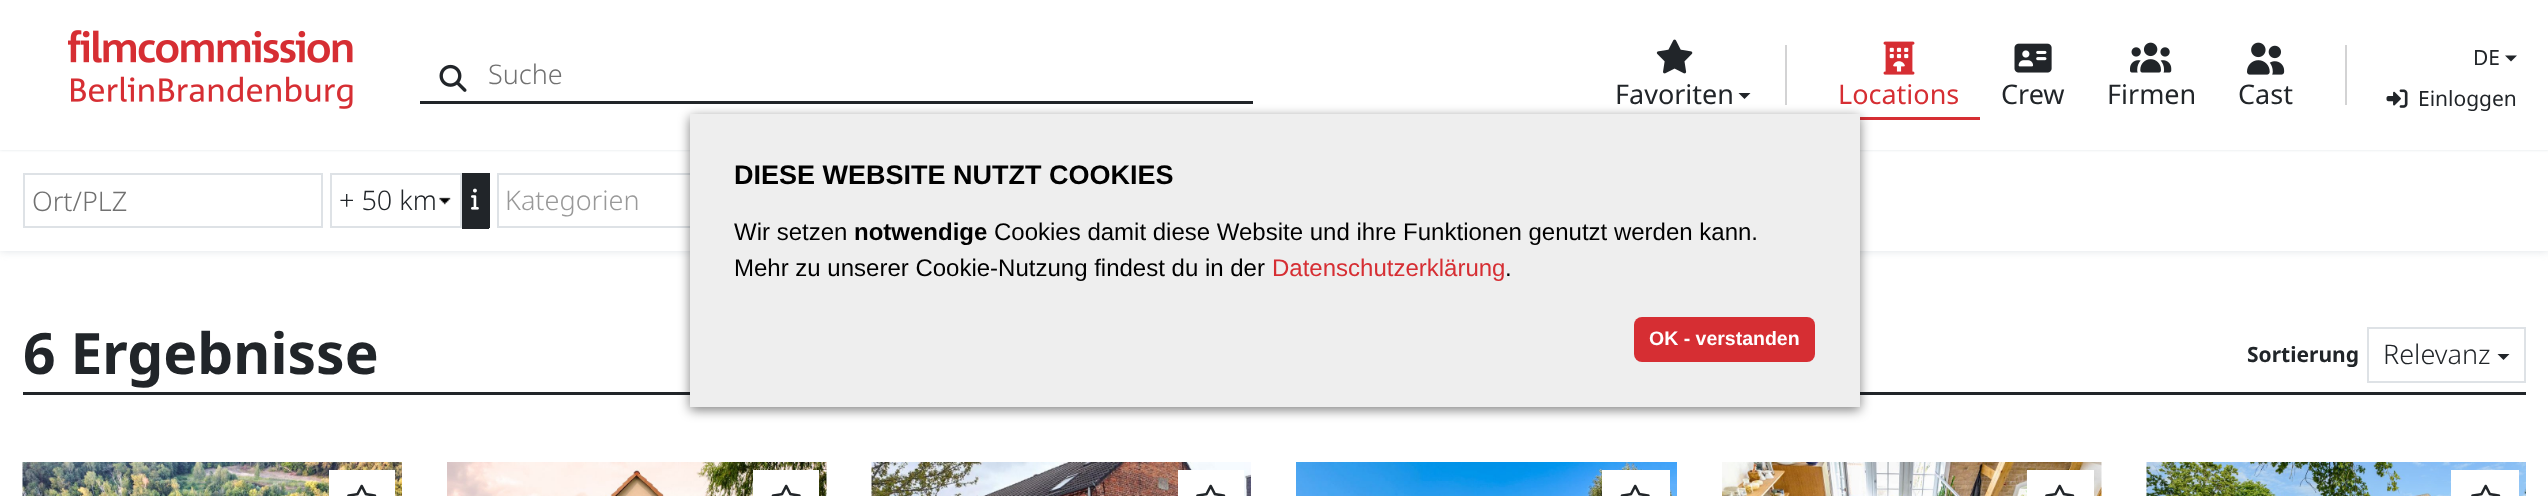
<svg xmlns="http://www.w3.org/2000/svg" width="2548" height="496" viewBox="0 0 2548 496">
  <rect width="100%" height="100%" fill="rgb(255,255,255)"/>
  <rect x="0" y="150" width="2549" height="101" fill="rgb(222,226,230)" filter="blur(4px)"/>
  <rect x="0" y="150" width="2548" height="101" fill="rgb(255,255,255)"/>
  <rect x="0" y="0" width="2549" height="150" fill="rgb(222,226,230)" filter="blur(1.5px)"/>
  <rect x="0" y="0" width="2548" height="150" fill="rgb(255,255,255)"/>
  <image x="68" y="30" width="285" height="79" href="pic1.png"/>
  <image x="439" y="64" width="28" height="28" href="pic2.png"/>
  <rect x="420" y="101" width="833" height="3" fill="rgb(33,37,41)"/>
  <text x="488" y="84" font-family="Noto Sans" font-size="27" font-weight="300" fill="rgb(113,113,113)">Suche</text>
  <image x="1656" y="39" width="37" height="35" href="pic3.png"/>
  <text x="1615" y="104" font-family="Noto Sans" font-size="27" fill="rgb(33,37,41)">Favoriten</text>
  <path d="M1738.5 93H1750.5L1744.5 99Z" fill="rgb(33,37,41)"/>
  <rect x="1785" y="45" width="2" height="60" fill="rgb(211,211,212)"/>
  <rect x="1860" y="117" width="120" height="3" fill="rgb(214,46,51)"/>
  <image x="1883" y="41" width="32" height="34" href="pic4.png"/>
  <text x="1838" y="104" font-family="Noto Sans" font-size="27" fill="rgb(214,46,51)">Locations</text>
  <image x="2014" y="43" width="38" height="30" href="pic5.png"/>
  <text x="2001" y="104" font-family="Noto Sans" font-size="27" fill="rgb(33,37,41)">Crew</text>
  <image x="2130" y="42" width="42" height="31" href="pic6.png"/>
  <text x="2107" y="104" font-family="Noto Sans" font-size="27" fill="rgb(33,37,41)">Firmen</text>
  <image x="2247" y="42" width="38" height="33" href="pic7.png"/>
  <text x="2238" y="104" font-family="Noto Sans" font-size="27" fill="rgb(33,37,41)">Cast</text>
  <rect x="2345" y="45" width="2" height="60" fill="rgb(211,211,212)"/>
  <text x="2473" y="65" font-family="Noto Sans" font-size="21" fill="rgb(33,37,41)">DE</text>
  <path d="M2505 55.5H2517L2511 61.5Z" fill="rgb(33,37,41)"/>
  <image x="2386" y="89" width="22" height="19" href="pic8.png"/>
  <text x="2418" y="106" font-family="Noto Sans" font-size="21" fill="rgb(33,37,41)">Einloggen</text>
  <rect x="24" y="174" width="298" height="53" fill="none" stroke="rgb(222,226,230)" stroke-width="2"/>
  <text x="32" y="211" font-family="Noto Sans" font-size="27" font-weight="300" fill="rgb(113,113,113)">Ort/PLZ</text>
  <image x="439" y="197" width="12" height="8" href="pic9.png"/>
  <rect x="331" y="174" width="130" height="53" fill="none" stroke="rgb(222,226,230)" stroke-width="2"/>
  <text x="339" y="210" font-family="Noto Sans" font-size="27" font-weight="300" fill="rgb(33,37,41)">+ 50 km</text>
  <rect x="462" y="173" width="26" height="54" fill="rgb(33,37,41)"/>
  <rect x="488" y="173" width="2" height="55" fill="rgb(33,37,41)"/>
  <rect x="462" y="227" width="27" height="2" fill="rgb(33,37,41)"/>
  <image x="471" y="188" width="8" height="22" href="pic10.png"/>
  <rect x="498" y="174" width="238" height="53" fill="none" stroke="rgb(222,226,230)" stroke-width="2"/>
  <text x="505" y="210" font-family="Noto Sans" font-size="27" font-weight="300" fill="rgb(153,153,153)">Kategorien</text>
  <rect x="23" y="392" width="2503" height="3" fill="rgb(33,37,41)"/>
  <rect x="690" y="117" width="1170" height="293" fill="rgba(0,0,0,0.5)" filter="blur(6px)"/>
  <rect x="690" y="114" width="1170" height="293" fill="rgb(238,238,238)"/>
  <text x="734" y="184" font-family="Liberation Sans" font-size="27" font-weight="bold" fill="rgb(0,0,0)">DIESE WEBSITE NUTZT COOKIES</text>
  <text x="734" y="240" font-family="Liberation Sans" font-size="24" fill="rgb(0,0,0)">Wir setzen</text>
  <text x="854" y="240" font-family="Liberation Sans" font-size="24" font-weight="bold" fill="rgb(0,0,0)">notwendige</text>
  <g font-family="Liberation Sans" font-size="24" fill="rgb(0,0,0)">
    <text x="994" y="240">Cookies damit diese Website und ihre Funktionen genutzt werden kann.</text>
    <text x="734" y="276">Mehr zu unserer Cookie-Nutzung findest du in der</text>
  </g>
  <text x="1272" y="276" font-family="Liberation Sans" font-size="24" fill="rgb(214,46,51)">Datenschutzerklärung</text>
  <text x="1505" y="276" font-family="Liberation Sans" font-size="24" fill="rgb(0,0,0)">.</text>
  <rect x="1634" y="317" width="181" height="45" rx="8" fill="rgb(214,46,51)"/>
  <text x="1649" y="345" font-family="Liberation Sans" font-size="19.5" font-weight="bold" fill="rgb(255,255,255)">OK - verstanden</text>
  <text x="23" y="374" font-family="Noto Sans" font-size="57" font-weight="bold" fill="rgb(33,37,41)">6 Ergebnisse</text>
  <text x="2247" y="362" font-family="Noto Sans" font-size="21" font-weight="bold" fill="rgb(33,37,41)">Sortierung</text>
  <rect x="2368" y="328" width="157" height="54" fill="none" stroke="rgb(222,226,230)" stroke-width="2"/>
  <text x="2383" y="364" font-family="Noto Sans" font-size="27" font-weight="300" fill="rgb(33,37,41)">Relevanz</text>
  <path d="M2497.5 354H2509.5L2503.5 360Z" fill="rgb(33,37,41)"/>
  <image x="22" y="462" width="380" height="34" href="pic11.png"/>
  <rect x="329" y="470" width="66" height="26" fill="rgb(255,255,255)"/>
  <image x="347" y="484" width="30" height="12" href="pic12.png"/>
  <image x="447" y="462" width="380" height="34" href="pic13.png"/>
  <rect x="753" y="470" width="66" height="26" fill="rgb(255,255,255)"/>
  <image x="771" y="484" width="30" height="12" href="pic14.png"/>
  <image x="871" y="462" width="380" height="34" href="pic15.png"/>
  <rect x="1178" y="470" width="66" height="26" fill="rgb(255,255,255)"/>
  <image x="1196" y="484" width="30" height="12" href="pic12.png"/>
  <image x="1296" y="462" width="381" height="34" href="pic16.png"/>
  <rect x="1602" y="470" width="68" height="26" fill="rgb(255,255,255)"/>
  <image x="1620" y="484" width="30" height="12" href="pic14.png"/>
  <image x="1722" y="462" width="380" height="34" href="pic17.png"/>
  <rect x="2027" y="470" width="67" height="26" fill="rgb(255,255,255)"/>
  <image x="2045" y="484" width="30" height="12" href="pic12.png"/>
  <image x="2146" y="462" width="380" height="34" href="pic18.png"/>
  <rect x="2451" y="470" width="68" height="26" fill="rgb(255,255,255)"/>
  <image x="2471" y="484" width="30" height="12" href="pic12.png"/>
</svg>
